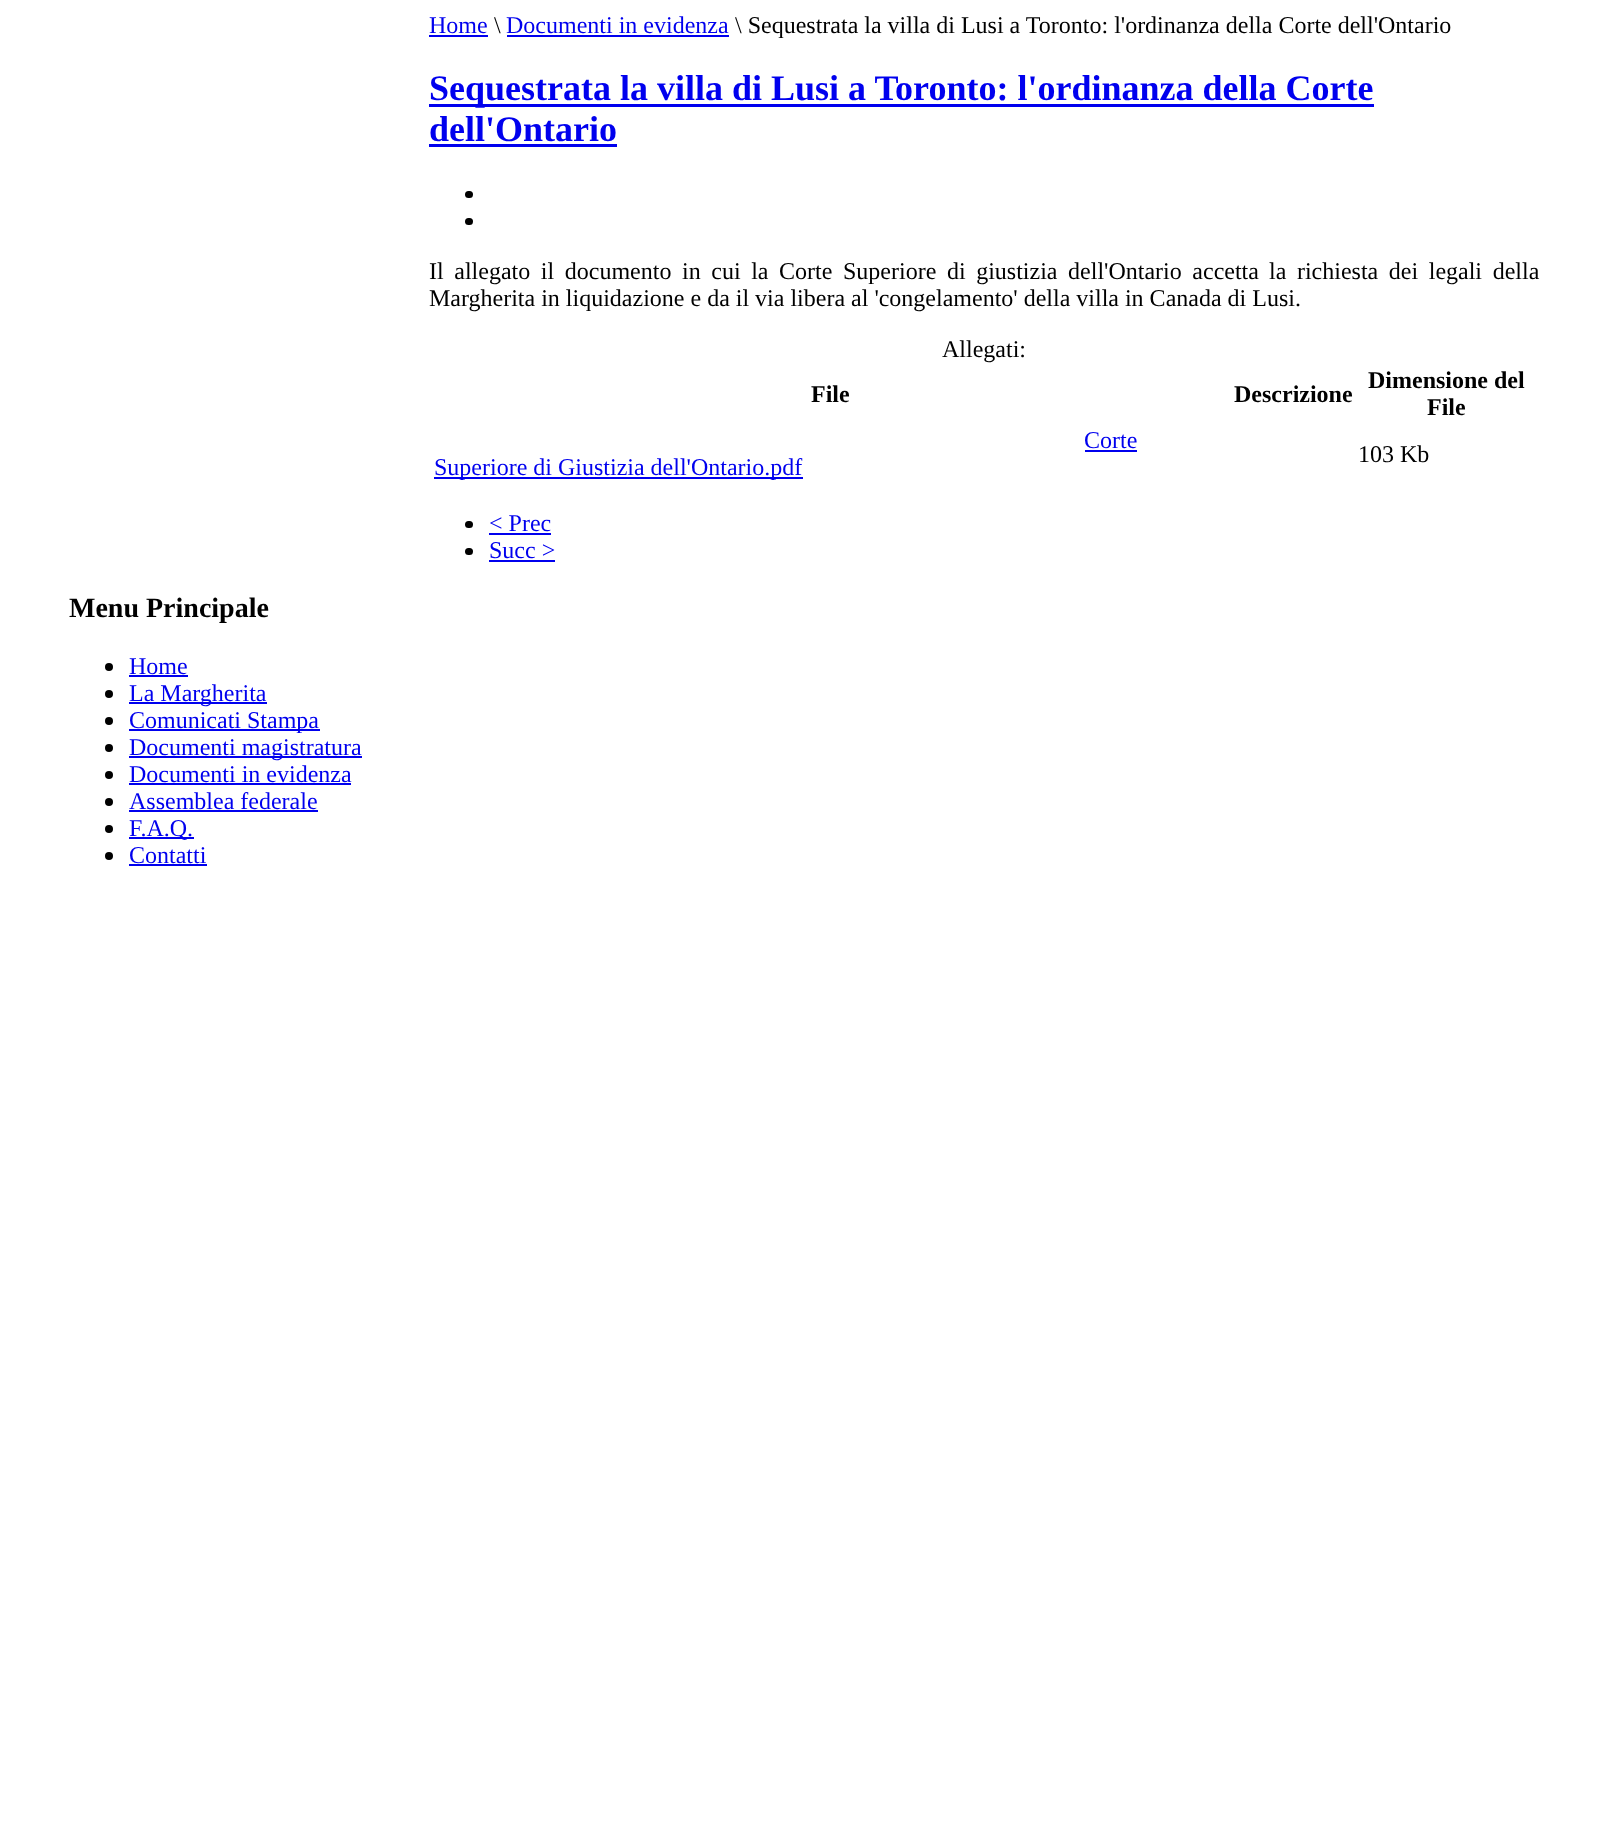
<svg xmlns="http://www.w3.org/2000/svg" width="1607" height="1831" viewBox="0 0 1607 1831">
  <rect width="100%" height="100%" fill="rgb(255,255,255)"/>
  <text x="429" y="33" font-family="Liberation Serif" font-size="24" fill="rgb(0,0,238)">Home</text>
  <rect x="429" y="35" width="59" height="2" fill="rgb(0,0,238)"/>
  <text x="494" y="33" font-family="Liberation Serif" font-size="24" fill="rgb(0,0,0)">\</text>
  <text x="506" y="33" font-family="Liberation Serif" font-size="24" fill="rgb(0,0,238)">Documenti in evidenza</text>
  <rect x="507" y="35" width="222" height="2" fill="rgb(0,0,238)"/>
  <text x="735" y="33" font-family="Liberation Serif" font-size="24" fill="rgb(0,0,0)">\ Sequestrata la villa di Lusi a Toronto: l'ordinanza della Corte dell'Ontario</text>
  <rect x="429" y="104" width="945" height="3" fill="rgb(0,0,238)"/>
  <g font-family="Liberation Serif" font-size="36" font-weight="bold" fill="rgb(0,0,238)">
    <text>
      <tspan x="429" y="100">Sequestrata la villa di Lusi a Toronto: l'ordinanza della Corte</tspan>
      <tspan x="429" y="141">dell'Ontario</tspan>
    </text>
  </g>
  <rect x="429" y="144" width="188" height="3" fill="rgb(0,0,238)"/>
  <rect x="465" y="191" width="8" height="7" rx="3.5" fill="rgb(0,0,0)"/>
  <rect x="465" y="218" width="8" height="7" rx="3.5" fill="rgb(0,0,0)"/>
  <g font-family="Liberation Serif" font-size="24" fill="rgb(0,0,0)">
    <text x="429" y="279" word-spacing="4.6">Il allegato il documento in cui la Corte Superiore di giustizia dell'Ontario accetta</text>
    <text x="1269" y="279" word-spacing="4.6">la richiesta dei legali della</text>
    <text x="429" y="306">Margherita in liquidazione e da il via libera al 'congelamento' della villa in Canada di Lusi.</text>
    <text x="942" y="357">Allegati:</text>
  </g>
  <g font-family="Liberation Serif" font-size="24" font-weight="bold" fill="rgb(0,0,0)">
    <text x="811" y="402">File</text>
    <text x="1234" y="402">Descrizione</text>
    <text x="1368" y="388">Dimensione del</text>
    <text x="1427" y="415">File</text>
  </g>
  <text x="1084" y="448" font-family="Liberation Serif" font-size="24" fill="rgb(0,0,238)">Corte</text>
  <rect x="1085" y="450" width="52" height="2" fill="rgb(0,0,238)"/>
  <rect x="434" y="477" width="369" height="2" fill="rgb(0,0,238)"/>
  <text x="434" y="475" font-family="Liberation Serif" font-size="24" fill="rgb(0,0,238)">Superiore di Giustizia dell'Ontario.pdf</text>
  <text x="1358" y="462" font-family="Liberation Serif" font-size="24" fill="rgb(0,0,0)">103 Kb</text>
  <rect x="465" y="521" width="8" height="7" rx="3.5" fill="rgb(0,0,0)"/>
  <text x="489" y="531" font-family="Liberation Serif" font-size="24" fill="rgb(0,0,238)">&lt; Prec</text>
  <rect x="489" y="533" width="62" height="2" fill="rgb(0,0,238)"/>
  <rect x="465" y="548" width="8" height="7" rx="3.5" fill="rgb(0,0,0)"/>
  <text x="489" y="558" font-family="Liberation Serif" font-size="24" fill="rgb(0,0,238)">Succ &gt;</text>
  <rect x="489" y="560" width="66" height="2" fill="rgb(0,0,238)"/>
  <text x="69" y="617" font-family="Liberation Serif" font-size="28" font-weight="bold" fill="rgb(0,0,0)">Menu Principale</text>
  <circle cx="109" cy="667" r="4" fill="rgb(0,0,0)"/>
  <text x="129" y="674" font-family="Liberation Serif" font-size="24" fill="rgb(0,0,238)">Home</text>
  <rect x="129" y="675" width="59" height="2" fill="rgb(0,0,238)"/>
  <circle cx="109" cy="694" r="4" fill="rgb(0,0,0)"/>
  <rect x="129" y="702" width="138" height="2" fill="rgb(0,0,238)"/>
  <text x="129" y="701" font-family="Liberation Serif" font-size="24" fill="rgb(0,0,238)">La Margherita</text>
  <circle cx="109" cy="721" r="4" fill="rgb(0,0,0)"/>
  <rect x="129" y="729" width="191" height="2" fill="rgb(0,0,238)"/>
  <text x="129" y="728" font-family="Liberation Serif" font-size="24" fill="rgb(0,0,238)">Comunicati Stampa</text>
  <circle cx="109" cy="748" r="4" fill="rgb(0,0,0)"/>
  <rect x="129" y="756" width="233" height="2" fill="rgb(0,0,238)"/>
  <text x="129" y="755" font-family="Liberation Serif" font-size="24" fill="rgb(0,0,238)">Documenti magistratura</text>
  <circle cx="109" cy="775" r="4" fill="rgb(0,0,0)"/>
  <text x="129" y="782" font-family="Liberation Serif" font-size="24" fill="rgb(0,0,238)">Documenti in evidenza</text>
  <rect x="129" y="783" width="222" height="2" fill="rgb(0,0,238)"/>
  <circle cx="109" cy="802" r="4" fill="rgb(0,0,0)"/>
  <text x="129" y="809" font-family="Liberation Serif" font-size="24" fill="rgb(0,0,238)">Assemblea federale</text>
  <rect x="129" y="810" width="189" height="2" fill="rgb(0,0,238)"/>
  <circle cx="109" cy="829" r="4" fill="rgb(0,0,0)"/>
  <rect x="129" y="837" width="65" height="2" fill="rgb(0,0,238)"/>
  <text x="129" y="836" font-family="Liberation Serif" font-size="24" fill="rgb(0,0,238)">F.A.Q.</text>
  <circle cx="109" cy="856" r="4" fill="rgb(0,0,0)"/>
  <text x="129" y="863" font-family="Liberation Serif" font-size="24" fill="rgb(0,0,238)">Contatti</text>
  <rect x="129" y="864" width="78" height="2" fill="rgb(0,0,238)"/>
</svg>
